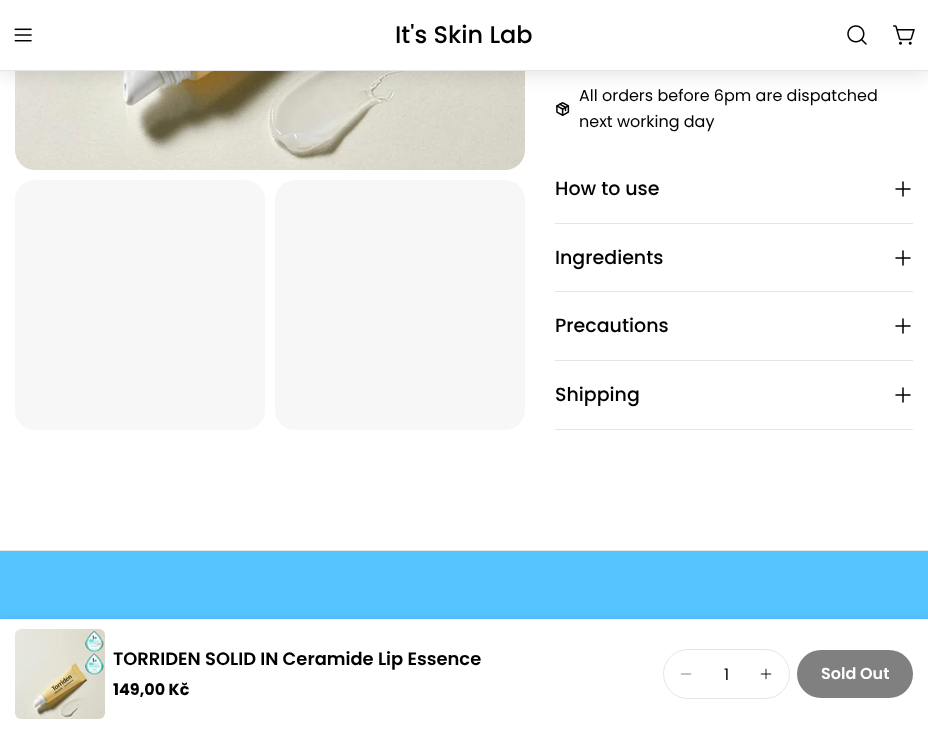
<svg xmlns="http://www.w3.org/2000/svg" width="928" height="729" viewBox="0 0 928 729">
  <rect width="100%" height="100%" fill="rgb(255,255,255)"/>
  <image x="15" y="71" width="510" height="99" href="pic4.png"/>
  <image x="556" y="102" width="14" height="14" href="pic5.png"/>
  <rect x="0" y="4" width="928" height="71" fill="rgba(0,0,0,0.1)" filter="blur(9px)"/>
  <rect x="0" y="70" width="928" height="1" fill="rgb(230,230,230)"/>
  <rect x="0" y="0" width="928" height="70" fill="rgb(255,255,255)"/>
  <image x="14" y="28" width="18" height="14" href="pic1.png"/>
  <text x="395" y="43" font-family="Poppins" font-size="24" font-weight="500" fill="rgb(0,0,0)">It's Skin Lab</text>
  <image x="847" y="25" width="20" height="20" href="pic2.png"/>
  <image x="893" y="25" width="22" height="20" href="pic3.png"/>
  <rect x="15" y="180" width="250" height="250" rx="20" fill="rgb(247,247,247)"/>
  <rect x="275" y="180" width="250" height="250" rx="20" fill="rgb(247,247,247)"/>
  <g font-family="Poppins" font-size="16" fill="rgb(0,0,0)">
    <text>
      <tspan x="579" y="101">All orders before 6pm are dispatched</tspan>
      <tspan x="579" y="127">next working day</tspan>
    </text>
  </g>
  <rect x="555" y="223" width="358" height="1" fill="rgb(230,230,230)"/>
  <text x="555" y="195" font-family="Poppins" font-size="19" font-weight="500" fill="rgb(0,0,0)">How to use</text>
  <path d="M896 189H910M903 182V196" fill="none" stroke="rgb(0,0,0)" stroke-width="1.5" stroke-linecap="round" stroke-linejoin="round"/>
  <rect x="555" y="291" width="358" height="1" fill="rgb(230,230,230)"/>
  <text x="555" y="264" font-family="Poppins" font-size="19" font-weight="500" fill="rgb(0,0,0)">Ingredients</text>
  <path d="M896 258H910M903 251V265" fill="none" stroke="rgb(0,0,0)" stroke-width="1.5" stroke-linecap="round" stroke-linejoin="round"/>
  <rect x="555" y="360" width="358" height="1" fill="rgb(230,230,230)"/>
  <text x="555" y="332" font-family="Poppins" font-size="19" font-weight="500" fill="rgb(0,0,0)">Precautions</text>
  <path d="M896 326H910M903 319V333" fill="none" stroke="rgb(0,0,0)" stroke-width="1.5" stroke-linecap="round" stroke-linejoin="round"/>
  <rect x="555" y="429" width="358" height="1" fill="rgb(230,230,230)"/>
  <text x="555" y="401" font-family="Poppins" font-size="19" font-weight="500" fill="rgb(0,0,0)">Shipping</text>
  <path d="M896 395H910M903 388V402" fill="none" stroke="rgb(0,0,0)" stroke-width="1.5" stroke-linecap="round" stroke-linejoin="round"/>
  <rect x="0" y="551" width="928" height="68" fill="rgb(86,197,255)"/>
  <rect x="0" y="550" width="928" height="1" fill="rgb(230,230,230)"/>
  <rect x="0" y="619" width="928" height="110" fill="rgba(0,0,0,0.09)" filter="blur(5px)"/>
  <rect x="0" y="619" width="928" height="110" fill="rgb(255,255,255)"/>
  <image x="15" y="629" width="90" height="90" href="pic6.png"/>
  <text x="113" y="665" font-family="Poppins" font-size="17.9" font-weight="600" fill="rgb(0,0,0)">TORRIDEN SOLID IN Ceramide Lip Essence</text>
  <text x="113" y="695" font-family="Poppins" font-size="16" font-weight="bold" fill="rgb(0,0,0)">149,00 Kč</text>
  <rect x="663.5" y="649.5" width="126" height="49" rx="24.5" fill="none" stroke="rgb(230,230,230)"/>
  <image x="680" y="673" width="12" height="2" href="pic7.png"/>
  <text x="724" y="680" font-family="Poppins" font-size="16" fill="rgb(0,0,0)">1</text>
  <image x="760" y="668" width="12" height="12" href="pic8.png"/>
  <rect x="797" y="650" width="116" height="48" rx="24" fill="rgb(128,128,128)"/>
  <text x="821" y="679" font-family="Poppins" font-size="16" font-weight="600" fill="rgb(255,255,255)">Sold Out</text>
</svg>
